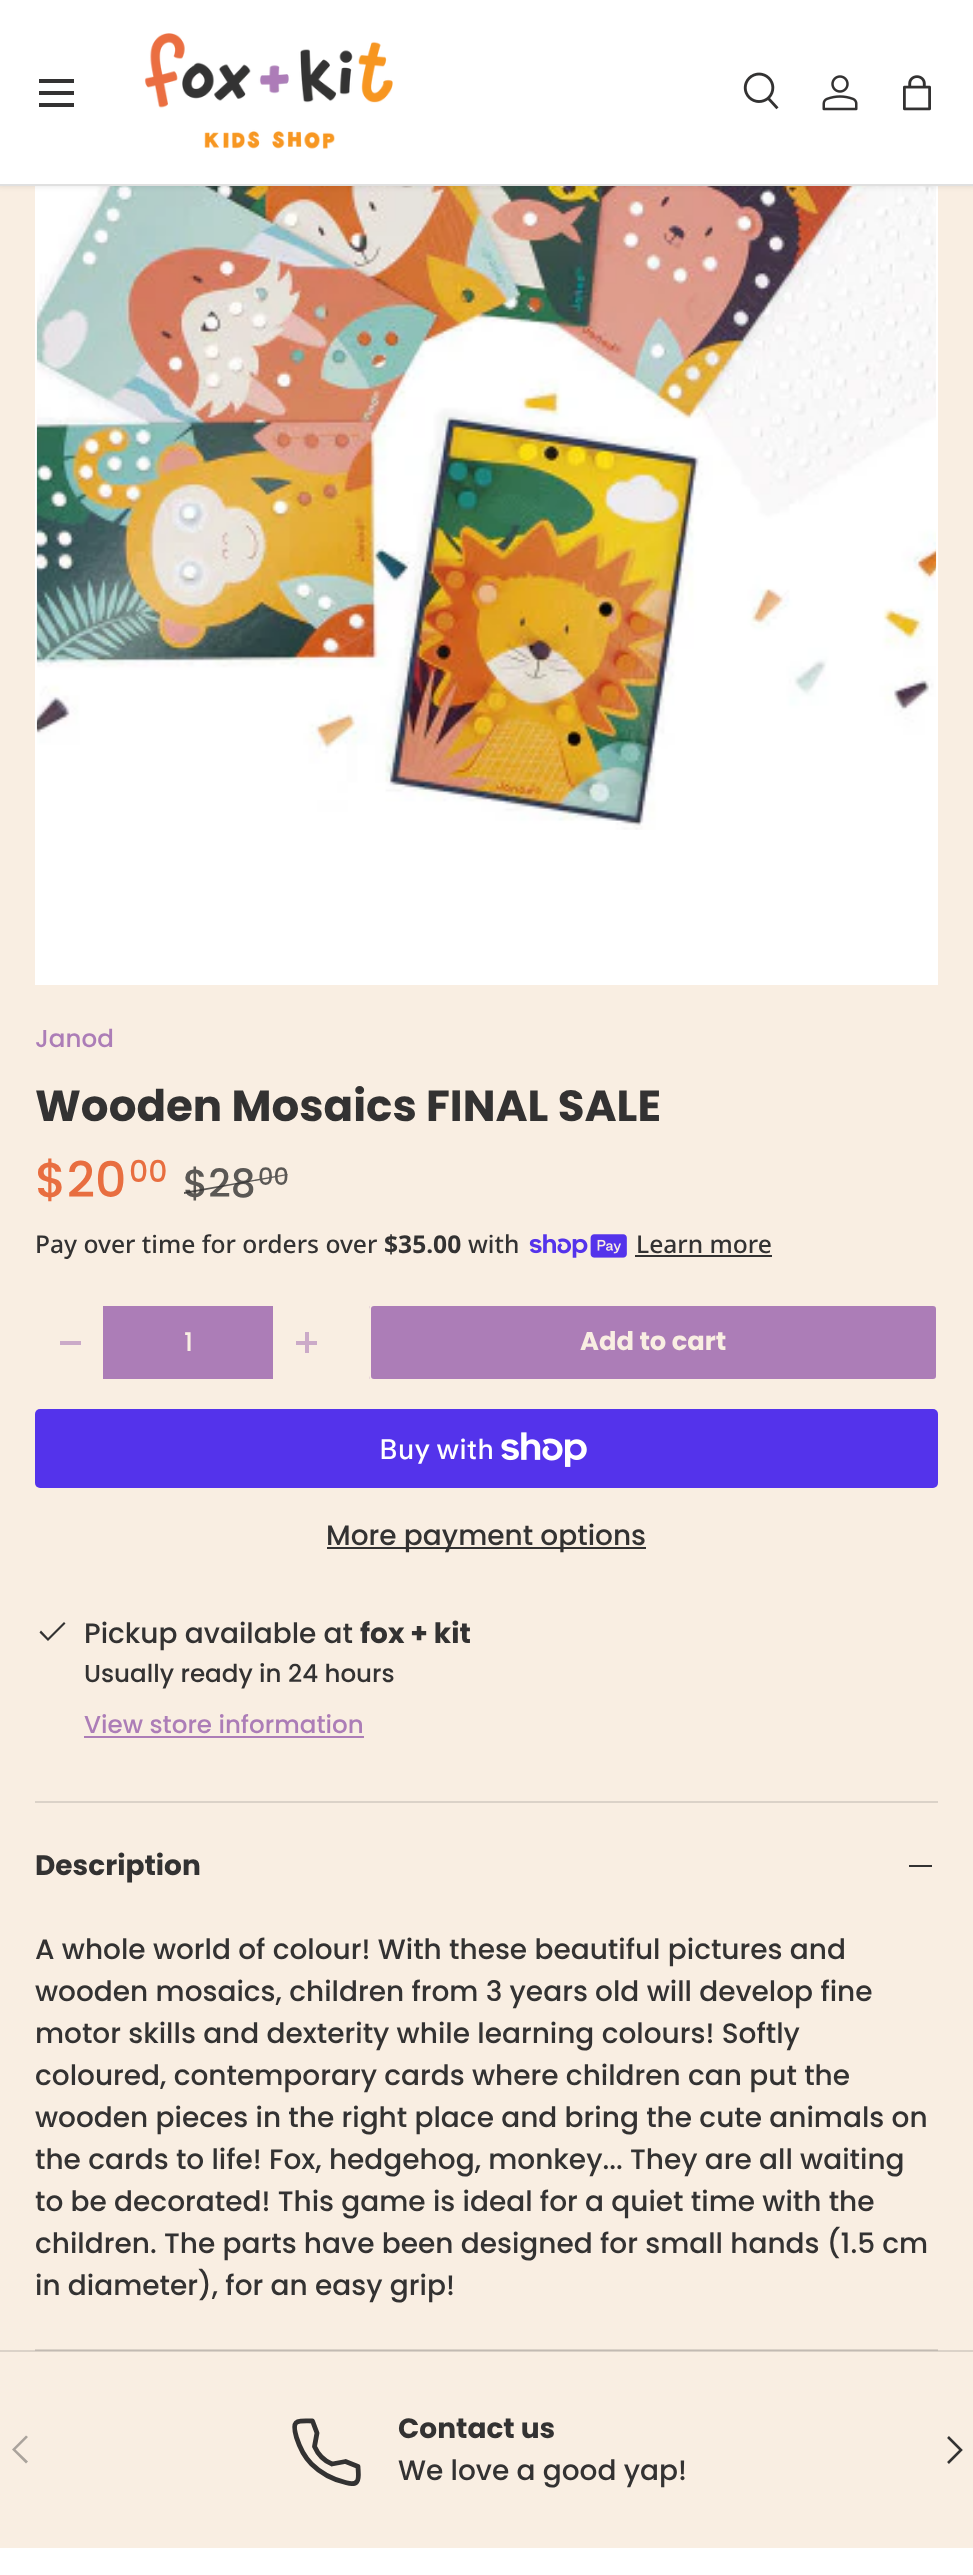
<svg xmlns="http://www.w3.org/2000/svg" width="973" height="2575" viewBox="0 0 973 2575">
  <defs>
    <clipPath id="clip1"><rect x="369" y="1304" width="569" height="77" rx="5"/></clipPath>
    <linearGradient id="g1" gradientUnits="userSpaceOnUse" x1="-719" y1="1141" x2="895" y2="1543"><stop offset="0.6" stop-color="rgb(249,238,226)" stop-opacity="0.07"/><stop offset="0.6" stop-color="rgb(172,125,183)"/><stop offset="1" stop-color="rgb(172,125,183)"/></linearGradient>
  </defs>
  <rect width="100%" height="100%" fill="rgb(249,238,226)"/>
  <rect x="0" y="2350" width="973" height="2" fill="rgb(219,210,200)"/>
  <rect x="35" y="186" width="903" height="799" fill="rgb(255,255,255)"/>
  <image x="36" y="186" width="901" height="644" href="pic5.png"/>
  <rect x="-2" y="-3" width="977" height="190" fill="rgba(0,0,0,0.08)" filter="blur(2.5px)"/>
  <rect x="0" y="0" width="973" height="184" fill="rgb(255,255,255)"/>
  <rect x="39" y="79" width="35" height="4" fill="rgb(51,50,50)"/>
  <rect x="39" y="103" width="35" height="4" fill="rgb(51,50,50)"/>
  <rect x="39" y="91" width="35" height="4" fill="rgb(51,50,50)"/>
  <image x="144" y="33" width="249" height="116" href="pic1.png"/>
  <image x="743" y="72" width="36" height="38" href="pic2.png"/>
  <image x="822" y="75" width="36" height="36" href="pic3.png"/>
  <image x="903" y="75" width="28" height="36" href="pic4.png"/>
  <rect x="0" y="184" width="973" height="2" fill="rgb(224,224,224)"/>
  <text x="35" y="1047" font-family="Poppins" font-size="24.6" font-weight="500" fill="rgb(172,125,183)">Janod</text>
  <text x="35" y="1121" font-family="Poppins" font-size="43.6" font-weight="bold" fill="rgb(51,50,50)">Wooden Mosaics FINAL SALE</text>
  <text x="35" y="1197" font-family="Poppins" font-size="49" font-weight="500" fill="rgb(232,110,64)">$20</text>
  <text x="129" y="1182" font-family="Poppins" font-size="30" font-weight="500" fill="rgb(232,110,64)">00</text>
  <text x="183" y="1197" font-family="Poppins" font-size="39" font-weight="500" fill="rgb(91,88,85)">$28</text>
  <path d="M184 1192L287 1174L288 1175L184 1194Z" fill="rgba(51,50,50,0.8)"/>
  <text x="258" y="1185" font-family="Poppins" font-size="24" font-weight="500" fill="rgb(91,88,85)">00</text>
  <text x="35" y="1253" font-family="Noto Sans" font-size="24.6" font-weight="500" fill="rgb(51,50,50)">Pay over time for orders over</text>
  <text x="384" y="1253" font-family="Noto Sans" font-size="24.6" font-weight="bold" fill="rgb(51,50,50)">$35.00</text>
  <text x="468" y="1253" font-family="Noto Sans" font-size="24.6" font-weight="500" fill="rgb(51,50,50)">with</text>
  <image x="529" y="1234" width="98" height="24" href="pic6.png"/>
  <text x="636" y="1253" font-family="Noto Sans" font-size="24.6" font-weight="500" fill="rgb(51,50,50)">Learn more</text>
  <rect x="635" y="1255" width="137" height="2" fill="rgb(51,50,50)"/>
  <rect x="60" y="1341" width="21" height="4" fill="rgb(203,170,200)"/>
  <rect x="103" y="1306" width="170" height="73" fill="rgb(172,125,183)"/>
  <text x="184" y="1351" font-family="Poppins" font-size="25.75" font-weight="500" fill="rgb(249,238,226)">1</text>
  <rect x="296" y="1341" width="21" height="4" fill="rgb(203,170,200)"/>
  <rect x="305" y="1332" width="4" height="21" fill="rgb(203,170,200)"/>
  <g clip-path="url(#clip1)">
    <rect x="369" y="1306" width="567" height="73" fill="url(#g1)"/>
  </g>
  <rect x="370" y="1305" width="567" height="75" rx="4" fill="none" stroke="rgb(249,238,226)" stroke-width="2"/>
  <text x="580" y="1350" font-family="Poppins" font-size="25.75" font-weight="bold" fill="rgb(249,238,226)">Add to cart</text>
  <rect x="35" y="1409" width="903" height="79" rx="5" fill="rgb(84,51,235)"/>
  <text x="379" y="1459" font-family="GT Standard" font-size="28" font-weight="500" fill="rgb(255,255,255)">Buy with</text>
  <image x="501" y="1432" width="86" height="35" href="pic7.png"/>
  <rect x="327" y="1547" width="319" height="2" fill="rgb(51,50,50)"/>
  <text x="326" y="1545" font-family="Poppins" font-size="28" font-weight="500" fill="rgb(51,50,50)">More payment options</text>
  <path d="M64 1622L65.5 1623.5L48 1641L39.5 1632.5L41 1630.5L48 1638Z" fill="rgb(51,50,50)"/>
  <text x="84" y="1643" font-family="Poppins" font-size="28" font-weight="500" fill="rgb(51,50,50)">Pickup available at</text>
  <text x="360" y="1643" font-family="Poppins" font-size="28" font-weight="bold" fill="rgb(51,50,50)">fox + kit</text>
  <text x="84" y="1682" font-family="Poppins" font-size="24.6" font-weight="500" fill="rgb(51,50,50)">Usually ready in 24 hours</text>
  <text x="84" y="1733" font-family="Poppins" font-size="24.6" font-weight="500" fill="rgb(172,125,183)">View store information</text>
  <rect x="84" y="1736" width="280" height="2" fill="rgb(172,125,183)"/>
  <rect x="35" y="1801" width="903" height="2" fill="rgb(219,210,200)"/>
  <rect x="35" y="2349" width="903" height="1" fill="rgb(219,210,200)"/>
  <rect x="35" y="2350" width="903" height="1" fill="rgb(194,186,178)"/>
  <text x="35" y="1875" font-family="Poppins" font-size="28" font-weight="bold" fill="rgb(51,50,50)">Description</text>
  <rect x="909" y="1865" width="23" height="2" fill="rgb(51,50,50)"/>
  <g font-family="Poppins" font-size="28" font-weight="500" fill="rgb(51,50,50)">
    <text>
      <tspan x="35" y="1959">A whole world of colour! With these beautiful pictures and</tspan>
      <tspan x="35" y="2001">wooden mosaics, children from 3 years old will develop fine</tspan>
      <tspan x="35" y="2043">motor skills and dexterity while learning colours! Softly</tspan>
      <tspan x="35" y="2085">coloured, contemporary cards where children can put the</tspan>
      <tspan x="35" y="2127">wooden pieces in the right place and bring the cute animals on</tspan>
      <tspan x="35" y="2169">the cards to life! Fox, hedgehog, monkey... They are all waiting</tspan>
      <tspan x="35" y="2211">to be decorated! This game is ideal for a quiet time with the</tspan>
      <tspan x="35" y="2253">children. The parts have been designed for small hands (1.5 cm</tspan>
      <tspan x="35" y="2295">in diameter), for an easy grip!</tspan>
    </text>
  </g>
  <path d="M345.5 2461.5L332 2464C324.5 2461 318 2454.5 314.5 2446.5L317 2433L312.5 2421C297 2421 291 2419 296.5 2437.5C299.5 2447 304.5 2457 311.5 2464C320.5 2473 333 2479.5 345.5 2482.5C349 2483.5 354 2485.5 357 2481.5C359.5 2478.5 358 2470.5 358 2466.5Z" fill="none" stroke="rgb(51,50,50)" stroke-width="4.8" stroke-linecap="round" stroke-linejoin="round"/>
  <text x="398" y="2438" font-family="Poppins" font-size="28" font-weight="bold" fill="rgb(51,50,50)">Contact us</text>
  <text x="398" y="2480" font-family="Poppins" font-size="28" font-weight="500" fill="rgb(51,50,50)">We love a good yap!</text>
  <path d="M12 2449.5L26 2435.5L28 2437L15.5 2449.5L28 2461.5L26 2463.5Z" fill="rgb(170,163,156)"/>
  <path d="M948 2437L961 2450L948 2463" fill="none" stroke="rgb(51,50,50)" stroke-width="2.6"/>
  <rect x="0" y="2548" width="973" height="27" fill="rgb(255,255,255)"/>
</svg>
